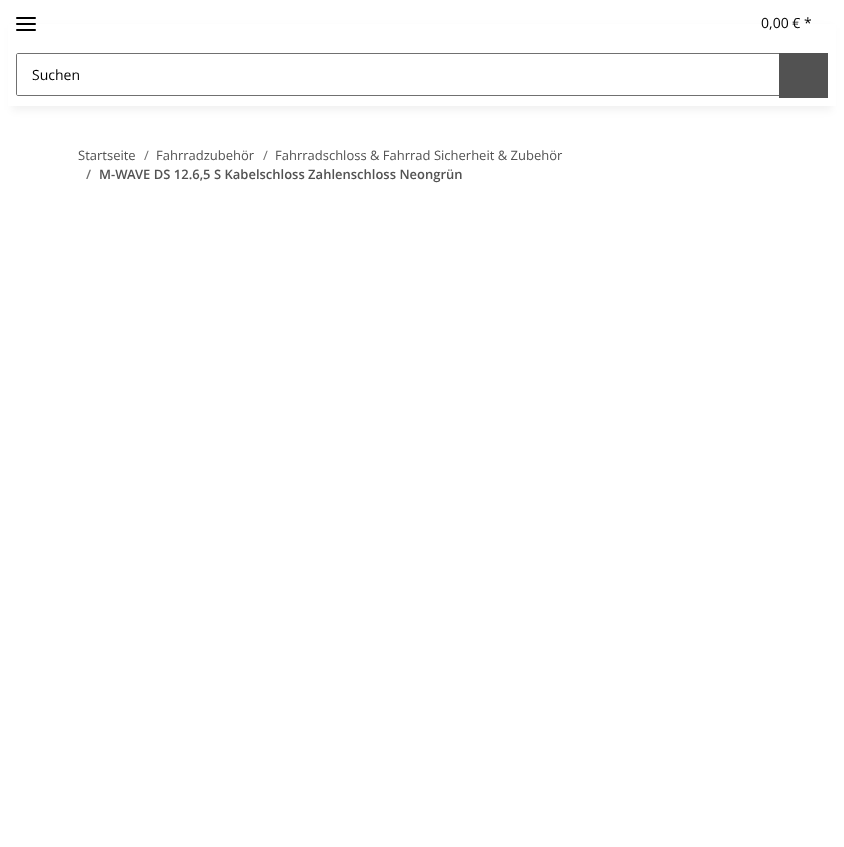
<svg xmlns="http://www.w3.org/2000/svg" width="844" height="847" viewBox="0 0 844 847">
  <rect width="100%" height="100%" fill="rgb(255,255,255)"/>
  <rect x="12" y="28" width="820" height="82" fill="rgba(0,0,0,0.06)" filter="blur(4.5px)"/>
  <rect x="8" y="24" width="828" height="82" fill="rgb(255,255,255)"/>
  <rect x="16" y="23" width="20" height="2" rx="1" fill="rgb(0,0,0)"/>
  <rect x="16" y="17" width="20" height="2" rx="1" fill="rgb(0,0,0)"/>
  <rect x="16" y="29" width="20" height="2" rx="1" fill="rgb(0,0,0)"/>
  <text x="761" y="28" font-family="Open Sans" font-size="14" fill="rgb(0,0,0)">0,00 € *</text>
  <path d="M18 53.5H779.5V95.5H18C17 95.5 16.5 95 16.5 94V55C16.5 54 17 53.5 18 53.5Z" fill="none" stroke="rgb(112,112,112)"/>
  <text x="32" y="80" font-family="Open Sans" font-size="14" fill="rgb(0,0,0)">Suchen</text>
  <rect x="779" y="53" width="49" height="45" fill="rgb(82,82,82)"/>
  <text x="78" y="160" font-family="Open Sans" font-size="13" fill="rgb(82,82,82)">Startseite</text>
  <text x="144" y="160" font-family="Open Sans" font-size="13" fill="rgb(112,112,112)">/</text>
  <text x="156" y="160" font-family="Open Sans" font-size="13" fill="rgb(82,82,82)">Fahrradzubehör</text>
  <text x="263" y="160" font-family="Open Sans" font-size="13" fill="rgb(112,112,112)">/</text>
  <text x="275" y="160" font-family="Open Sans" font-size="13" fill="rgb(82,82,82)">Fahrradschloss &amp; Fahrrad Sicherheit &amp; Zubehör</text>
  <text x="86" y="179" font-family="Open Sans" font-size="13" font-weight="600" fill="rgb(112,112,112)">/</text>
  <text x="99" y="179" font-family="Open Sans" font-size="13" font-weight="600" fill="rgb(82,82,82)">M-WAVE DS 12.6,5 S Kabelschloss Zahlenschloss Neongrün</text>
</svg>
